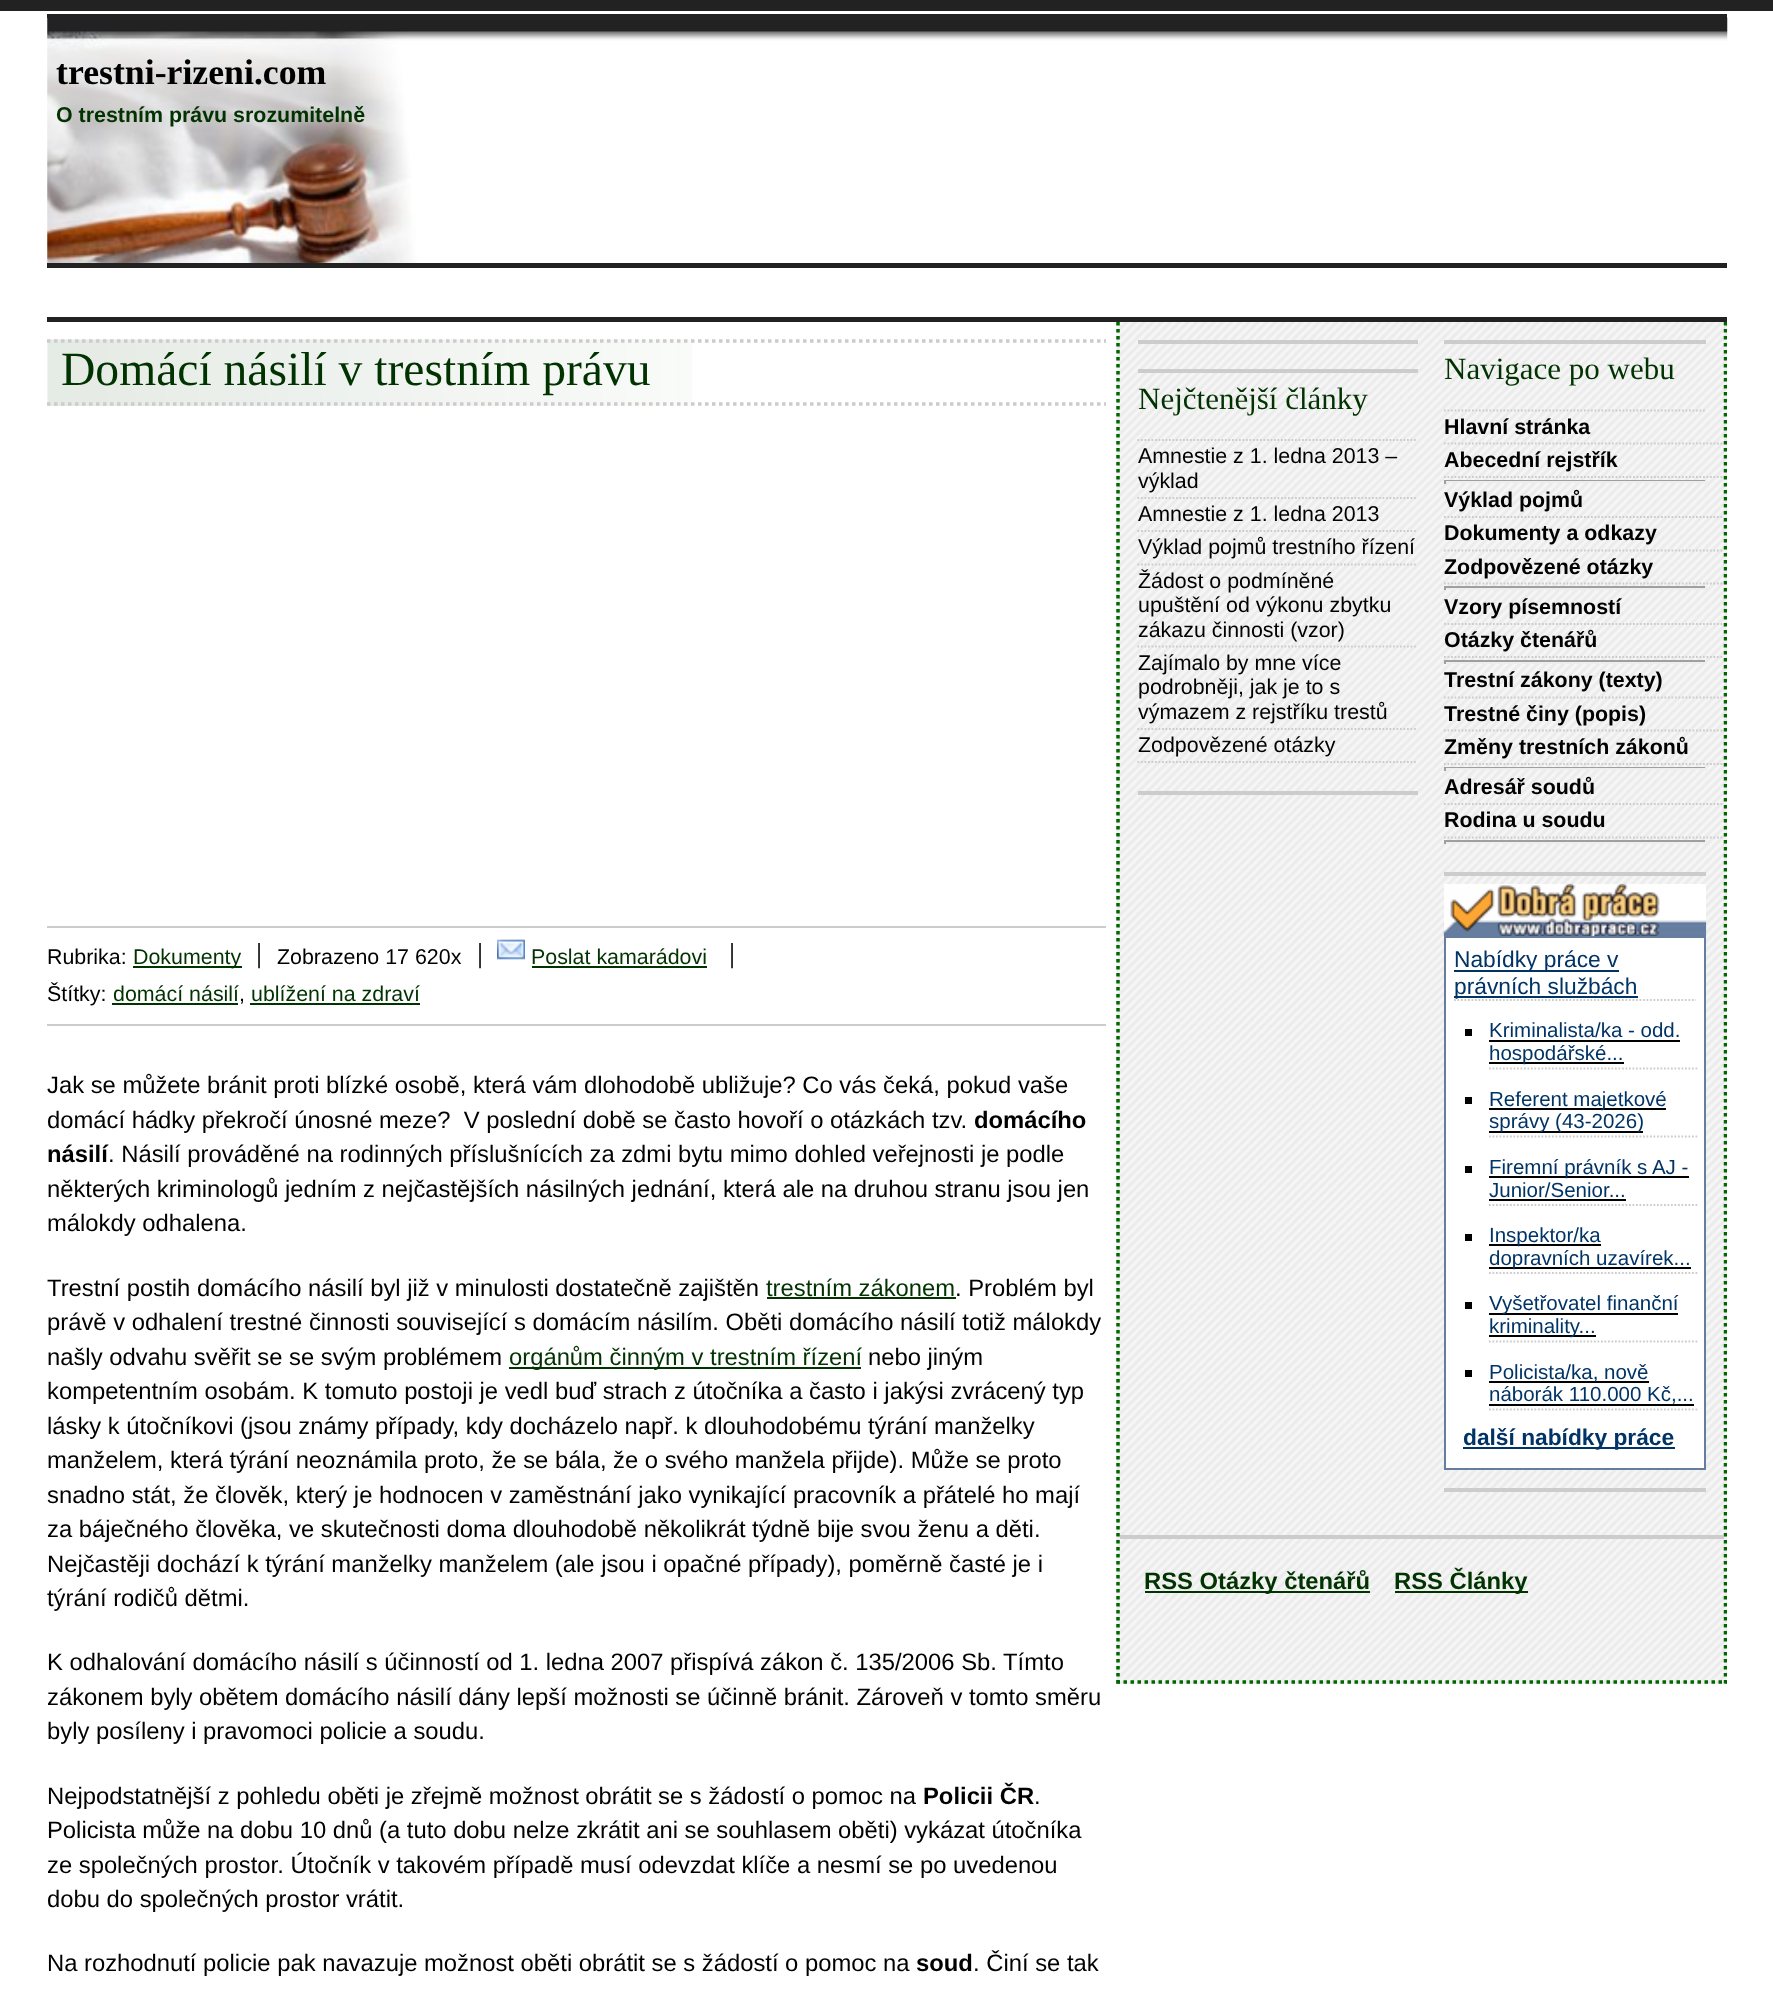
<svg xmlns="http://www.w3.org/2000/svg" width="1773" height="1991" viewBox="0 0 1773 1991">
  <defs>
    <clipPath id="clip1"><rect x="47" y="322" width="1680" height="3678"/></clipPath>
  </defs>
  <rect width="100%" height="100%" fill="rgb(255,255,255)"/>
  <rect x="0" y="0" width="1773" height="11" fill="rgb(34,34,34)"/>
  <rect x="47" y="14" width="1680" height="4" fill="rgb(34,34,34)"/>
  <image x="47" y="17" width="1681" height="251" href="pic1.png"/>
  <rect x="47" y="263" width="1680" height="5" fill="rgb(34,34,34)"/>
  <text x="56" y="84" font-family="Liberation Serif" font-size="35.75" font-weight="bold" fill="rgb(0,0,0)">trestni-rizeni.com</text>
  <text x="56" y="122" font-family="Liberation Sans" font-size="21.4" font-weight="bold" fill="rgb(0,51,0)">O trestním právu srozumitelně</text>
  <rect x="47" y="317" width="1680" height="5" fill="rgb(34,34,34)"/>
  <image x="47" y="339" width="645" height="67" href="pic2.png"/>
  <path d="M47 341H1106" fill="none" stroke="rgb(204,204,204)" stroke-width="3.5" stroke-dasharray="3.5 3.5"/>
  <path d="M47 404H1106" fill="none" stroke="rgb(204,204,204)" stroke-width="3.5" stroke-dasharray="3.5 3.5"/>
  <text x="61" y="385" font-family="Liberation Serif" font-size="47.6" fill="rgb(0,51,0)">Domácí násilí v trestním právu</text>
  <rect x="47" y="926" width="1059" height="2" fill="rgb(204,204,204)"/>
  <rect x="47" y="1024" width="1059" height="2" fill="rgb(204,204,204)"/>
  <text x="47" y="964" font-family="Liberation Sans" font-size="21.4" fill="rgb(0,0,0)">Rubrika:</text>
  <rect x="133" y="966" width="109" height="2" fill="rgb(0,51,0)"/>
  <text x="133" y="964" font-family="Liberation Sans" font-size="21.4" fill="rgb(0,51,0)">Dokumenty</text>
  <text x="265" y="964" font-family="Liberation Sans" font-size="21.4" direction="rtl" fill="rgb(0,0,0)">׀</text>
  <text x="277" y="964" font-family="Liberation Sans" font-size="21.4" fill="rgb(0,0,0)">Zobrazeno 17 620x</text>
  <text x="486" y="964" font-family="Liberation Sans" font-size="21.4" direction="rtl" fill="rgb(0,0,0)">׀</text>
  <image x="497" y="939" width="28" height="21" href="pic3.png"/>
  <text x="531" y="964" font-family="Liberation Sans" font-size="21.4" fill="rgb(0,51,0)">Poslat kamarádovi</text>
  <rect x="532" y="966" width="175" height="2" fill="rgb(0,51,0)"/>
  <text x="738" y="964" font-family="Liberation Sans" font-size="21.4" direction="rtl" fill="rgb(0,0,0)">׀</text>
  <text x="47" y="1001" font-family="Liberation Sans" font-size="21.4" fill="rgb(0,0,0)">Štítky:</text>
  <text x="113" y="1001" font-family="Liberation Sans" font-size="21.4" fill="rgb(0,51,0)">domácí násilí</text>
  <text x="239" y="1001" font-family="Liberation Sans" font-size="21.4" fill="rgb(0,0,0)">,</text>
  <rect x="112" y="1003" width="126" height="2" fill="rgb(0,51,0)"/>
  <rect x="250" y="1003" width="170" height="2" fill="rgb(0,51,0)"/>
  <text x="251" y="1001" font-family="Liberation Sans" font-size="21.4" fill="rgb(0,51,0)">ublížení na zdraví</text>
  <g font-family="Liberation Sans" font-size="23.8" fill="rgb(0,0,0)">
    <text xml:space="preserve"><tspan x="47" y="1093">Jak se můžete bránit proti blízké osobě, která vám dlohodobě ubližuje? Co vás čeká, pokud vaše</tspan><tspan x="47" y="1128">domácí hádky překročí únosné meze?  V poslední době se často hovoří o otázkách tzv.</tspan></text>
  </g>
  <g font-family="Liberation Sans" font-size="23.8" font-weight="bold" fill="rgb(0,0,0)">
    <text x="974" y="1128">domácího</text>
    <text x="47" y="1162">násilí</text>
  </g>
  <g font-family="Liberation Sans" font-size="23.8" fill="rgb(0,0,0)">
    <text x="108" y="1162">. Násilí prováděné na rodinných příslušnících za zdmi bytu mimo dohled veřejnosti je podle</text>
    <text>
      <tspan x="47" y="1197">některých kriminologů jedním z nejčastějších násilných jednání, která ale na druhou stranu jsou jen</tspan>
      <tspan x="47" y="1231">málokdy odhalena.</tspan>
    </text>
    <text x="47" y="1296">Trestní postih domácího násilí byl již v minulosti dostatečně zajištěn</text>
  </g>
  <text x="766" y="1296" font-family="Liberation Sans" font-size="23.8" fill="rgb(0,51,0)">trestním zákonem</text>
  <rect x="767" y="1297" width="189" height="2" fill="rgb(0,51,0)"/>
  <g font-family="Liberation Sans" font-size="23.8" fill="rgb(0,0,0)">
    <text x="955" y="1296">. Problém byl</text>
    <text>
      <tspan x="47" y="1330">právě v odhalení trestné činnosti související s domácím násilím. Oběti domácího násilí totiž málokdy</tspan>
      <tspan x="47" y="1365">našly odvahu svěřit se se svým problémem</tspan>
    </text>
  </g>
  <rect x="509" y="1367" width="352" height="2" fill="rgb(0,51,0)"/>
  <text x="509" y="1365" font-family="Liberation Sans" font-size="23.8" fill="rgb(0,51,0)">orgánům činným v trestním řízení</text>
  <g font-family="Liberation Sans" font-size="23.8" fill="rgb(0,0,0)">
    <text x="868" y="1365">nebo jiným</text>
    <text>
      <tspan x="47" y="1399">kompetentním osobám. K tomuto postoji je vedl buď strach z útočníka a často i jakýsi zvrácený typ</tspan>
      <tspan x="47" y="1434">lásky k útočníkovi (jsou známy případy, kdy docházelo např. k dlouhodobému týrání manželky</tspan>
      <tspan x="47" y="1468">manželem, která týrání neoznámila proto, že se bála, že o svého manžela přijde). Může se proto</tspan>
      <tspan x="47" y="1503">snadno stát, že člověk, který je hodnocen v zaměstnání jako vynikající pracovník a přátelé ho mají</tspan>
      <tspan x="47" y="1537">za báječného člověka, ve skutečnosti doma dlouhodobě několikrát týdně bije svou ženu a děti.</tspan>
      <tspan x="47" y="1572">Nejčastěji dochází k týrání manželky manželem (ale jsou i opačné případy), poměrně časté je i</tspan>
      <tspan x="47" y="1606">týrání rodičů dětmi.</tspan>
    </text>
    <text>
      <tspan x="47" y="1670">K odhalování domácího násilí s účinností od 1. ledna 2007 přispívá zákon č. 135/2006 Sb. Tímto</tspan>
      <tspan x="47" y="1705">zákonem byly obětem domácího násilí dány lepší možnosti se účinně bránit. Zároveň v tomto směru</tspan>
      <tspan x="47" y="1739">byly posíleny i pravomoci policie a soudu.</tspan>
    </text>
    <text x="47" y="1804">Nejpodstatnější z pohledu oběti je zřejmě možnost obrátit se s žádostí o pomoc na</text>
  </g>
  <text x="923" y="1804" font-family="Liberation Sans" font-size="23.8" font-weight="bold" fill="rgb(0,0,0)">Policii ČR</text>
  <g font-family="Liberation Sans" font-size="23.8" fill="rgb(0,0,0)">
    <text x="1034" y="1804">.</text>
    <text>
      <tspan x="47" y="1838">Policista může na dobu 10 dnů (a tuto dobu nelze zkrátit ani se souhlasem oběti) vykázat útočníka</tspan>
      <tspan x="47" y="1873">ze společných prostor. Útočník v takovém případě musí odevzdat klíče a nesmí se po uvedenou</tspan>
      <tspan x="47" y="1907">dobu do společných prostor vrátit.</tspan>
    </text>
    <text x="47" y="1971">Na rozhodnutí policie pak navazuje možnost oběti obrátit se s žádostí o pomoc na</text>
  </g>
  <text x="916" y="1971" font-family="Liberation Sans" font-size="23.8" font-weight="bold" fill="rgb(0,0,0)">soud</text>
  <text x="973" y="1971" font-family="Liberation Sans" font-size="23.8" fill="rgb(0,0,0)">. Činí se tak</text>
  <rect x="1117" y="1683" width="610" height="1" fill="rgb(239,239,239)"/>
  <image x="1116" y="322" width="611" height="1361" href="pic4.png"/>
  <g clip-path="url(#clip1)">
    <path d="M1725.5 322V1683.5" fill="none" stroke="rgb(0,102,0)" stroke-width="3.5" stroke-dasharray="3.5 3.5"/>
  </g>
  <path d="M1116.5 1682H1727" fill="none" stroke="rgb(0,102,0)" stroke-width="3.5" stroke-dasharray="3.5 3.5"/>
  <path d="M1118 322V1683.5" fill="none" stroke="rgb(0,102,0)" stroke-width="3.5" stroke-dasharray="3.5 3.5"/>
  <rect x="1138" y="340" width="280" height="4" fill="rgb(204,204,204)"/>
  <rect x="1138" y="369" width="280" height="4" fill="rgb(204,204,204)"/>
  <text x="1138" y="409" font-family="Liberation Serif" font-size="31" fill="rgb(0,51,0)">Nejčtenější články</text>
  <path d="M1137.5 440H1417.5" fill="none" stroke="rgb(204,204,204)" stroke-width="1.8" stroke-dasharray="1.75 1.75"/>
  <path d="M1137.5 498H1417.5" fill="none" stroke="rgb(204,204,204)" stroke-width="1.8" stroke-dasharray="1.75 1.75"/>
  <g font-family="Liberation Sans" font-size="21.4" fill="rgb(0,0,0)">
    <text>
      <tspan x="1138" y="463">Amnestie z 1. ledna 2013 –</tspan>
      <tspan x="1138" y="488">výklad</tspan>
    </text>
  </g>
  <path d="M1137.5 531H1417.5" fill="none" stroke="rgb(204,204,204)" stroke-width="1.8" stroke-dasharray="1.75 1.75"/>
  <text x="1138" y="521" font-family="Liberation Sans" font-size="21.4" fill="rgb(0,0,0)">Amnestie z 1. ledna 2013</text>
  <path d="M1137.5 564.5H1417.5" fill="none" stroke="rgb(204,204,204)" stroke-width="1.8" stroke-dasharray="1.75 1.75"/>
  <text x="1138" y="554" font-family="Liberation Sans" font-size="21.4" fill="rgb(0,0,0)">Výklad pojmů trestního řízení</text>
  <path d="M1137.5 646.5H1417.5" fill="none" stroke="rgb(204,204,204)" stroke-width="1.8" stroke-dasharray="1.75 1.75"/>
  <g font-family="Liberation Sans" font-size="21.4" fill="rgb(0,0,0)">
    <text>
      <tspan x="1138" y="588">Žádost o podmíněné</tspan>
      <tspan x="1138" y="612">upuštění od výkonu zbytku</tspan>
      <tspan x="1138" y="637">zákazu činnosti (vzor)</tspan>
    </text>
  </g>
  <path d="M1137.5 729H1417.5" fill="none" stroke="rgb(204,204,204)" stroke-width="1.8" stroke-dasharray="1.75 1.75"/>
  <g font-family="Liberation Sans" font-size="21.4" fill="rgb(0,0,0)">
    <text>
      <tspan x="1138" y="670">Zajímalo by mne více</tspan>
      <tspan x="1138" y="694">podrobněji, jak je to s</tspan>
      <tspan x="1138" y="719">výmazem z rejstříku trestů</tspan>
    </text>
  </g>
  <path d="M1137.5 762H1417.5" fill="none" stroke="rgb(204,204,204)" stroke-width="1.8" stroke-dasharray="1.75 1.75"/>
  <text x="1138" y="752" font-family="Liberation Sans" font-size="21.4" fill="rgb(0,0,0)">Zodpovězené otázky</text>
  <rect x="1138" y="791" width="280" height="4" fill="rgb(204,204,204)"/>
  <rect x="1444" y="340" width="262" height="4" fill="rgb(204,204,204)"/>
  <text x="1444" y="379" font-family="Liberation Serif" font-size="31" fill="rgb(0,51,0)">Navigace po webu</text>
  <path d="M1444 410.5H1706" fill="none" stroke="rgb(204,204,204)" stroke-width="1.8" stroke-dasharray="1.75 1.75"/>
  <path d="M1444 443.5H1724" fill="none" stroke="rgb(204,204,204)" stroke-width="1.8" stroke-dasharray="1.75 1.75"/>
  <text x="1444" y="434" font-family="Liberation Sans" font-size="21.4" font-weight="bold" fill="rgb(0,0,0)">Hlavní stránka</text>
  <path d="M1444 477H1724" fill="none" stroke="rgb(204,204,204)" stroke-width="1.8" stroke-dasharray="1.75 1.75"/>
  <text x="1444" y="467" font-family="Liberation Sans" font-size="21.4" font-weight="bold" fill="rgb(0,0,0)">Abecední rejstřík</text>
  <rect x="1444" y="480" width="262" height="1" fill="rgb(159,159,159)"/>
  <rect x="1705" y="480" width="2" height="4" fill="rgb(238,238,238)"/>
  <rect x="1444" y="481" width="262" height="2" fill="rgb(238,238,238)"/>
  <rect x="1444" y="480" width="2" height="4" fill="rgb(159,159,159)"/>
  <path d="M1444 517H1724" fill="none" stroke="rgb(204,204,204)" stroke-width="1.8" stroke-dasharray="1.75 1.75"/>
  <text x="1444" y="507" font-family="Liberation Sans" font-size="21.4" font-weight="bold" fill="rgb(0,0,0)">Výklad pojmů</text>
  <path d="M1444 550.5H1724" fill="none" stroke="rgb(204,204,204)" stroke-width="1.8" stroke-dasharray="1.75 1.75"/>
  <text x="1444" y="540" font-family="Liberation Sans" font-size="21.4" font-weight="bold" fill="rgb(0,0,0)">Dokumenty a odkazy</text>
  <path d="M1444 583.5H1724" fill="none" stroke="rgb(204,204,204)" stroke-width="1.8" stroke-dasharray="1.75 1.75"/>
  <text x="1444" y="574" font-family="Liberation Sans" font-size="21.4" font-weight="bold" fill="rgb(0,0,0)">Zodpovězené otázky</text>
  <rect x="1444" y="586" width="262" height="2" fill="rgb(159,159,159)"/>
  <rect x="1705" y="586" width="2" height="4" fill="rgb(238,238,238)"/>
  <rect x="1444" y="588" width="262" height="2" fill="rgb(238,238,238)"/>
  <rect x="1444" y="586" width="2" height="4" fill="rgb(159,159,159)"/>
  <path d="M1444 624H1724" fill="none" stroke="rgb(204,204,204)" stroke-width="1.8" stroke-dasharray="1.75 1.75"/>
  <text x="1444" y="614" font-family="Liberation Sans" font-size="21.4" font-weight="bold" fill="rgb(0,0,0)">Vzory písemností</text>
  <path d="M1444 657H1724" fill="none" stroke="rgb(204,204,204)" stroke-width="1.8" stroke-dasharray="1.75 1.75"/>
  <text x="1444" y="647" font-family="Liberation Sans" font-size="21.4" font-weight="bold" fill="rgb(0,0,0)">Otázky čtenářů</text>
  <rect x="1444" y="660" width="262" height="2" fill="rgb(159,159,159)"/>
  <rect x="1705" y="660" width="2" height="4" fill="rgb(238,238,238)"/>
  <rect x="1444" y="662" width="262" height="2" fill="rgb(238,238,238)"/>
  <rect x="1444" y="660" width="2" height="4" fill="rgb(159,159,159)"/>
  <path d="M1444 697.5H1724" fill="none" stroke="rgb(204,204,204)" stroke-width="1.8" stroke-dasharray="1.75 1.75"/>
  <text x="1444" y="687" font-family="Liberation Sans" font-size="21.4" font-weight="bold" fill="rgb(0,0,0)">Trestní zákony (texty)</text>
  <path d="M1444 730.5H1724" fill="none" stroke="rgb(204,204,204)" stroke-width="1.8" stroke-dasharray="1.75 1.75"/>
  <text x="1444" y="721" font-family="Liberation Sans" font-size="21.4" font-weight="bold" fill="rgb(0,0,0)">Trestné činy (popis)</text>
  <path d="M1444 764H1724" fill="none" stroke="rgb(204,204,204)" stroke-width="1.8" stroke-dasharray="1.75 1.75"/>
  <text x="1444" y="754" font-family="Liberation Sans" font-size="21.4" font-weight="bold" fill="rgb(0,0,0)">Změny trestních zákonů</text>
  <rect x="1444" y="767" width="262" height="1" fill="rgb(159,159,159)"/>
  <rect x="1705" y="767" width="2" height="4" fill="rgb(238,238,238)"/>
  <rect x="1444" y="768" width="262" height="2" fill="rgb(238,238,238)"/>
  <rect x="1444" y="767" width="2" height="4" fill="rgb(159,159,159)"/>
  <path d="M1444 804H1724" fill="none" stroke="rgb(204,204,204)" stroke-width="1.8" stroke-dasharray="1.75 1.75"/>
  <text x="1444" y="794" font-family="Liberation Sans" font-size="21.4" font-weight="bold" fill="rgb(0,0,0)">Adresář soudů</text>
  <path d="M1444 837.5H1724" fill="none" stroke="rgb(204,204,204)" stroke-width="1.8" stroke-dasharray="1.75 1.75"/>
  <text x="1444" y="827" font-family="Liberation Sans" font-size="21.4" font-weight="bold" fill="rgb(0,0,0)">Rodina u soudu</text>
  <rect x="1444" y="840" width="262" height="2" fill="rgb(159,159,159)"/>
  <rect x="1705" y="840" width="2" height="4" fill="rgb(238,238,238)"/>
  <rect x="1444" y="842" width="262" height="2" fill="rgb(238,238,238)"/>
  <rect x="1444" y="840" width="2" height="4" fill="rgb(159,159,159)"/>
  <rect x="1444" y="872" width="262" height="4" fill="rgb(204,204,204)"/>
  <rect x="1660" y="884" width="46" height="36" fill="rgb(255,255,255)"/>
  <image x="1443" y="920" width="264" height="16" href="pic5.png"/>
  <rect x="1445" y="937" width="260" height="532" fill="rgb(255,255,255)" stroke="rgb(101,125,159)" stroke-width="2"/>
  <image x="1443" y="883" width="217" height="54" href="pic6.png"/>
  <rect x="1454" y="970" width="165" height="2" fill="rgb(0,51,102)"/>
  <text x="1454" y="967" font-family="Liberation Sans" font-size="22.75" fill="rgb(0,51,102)">Nabídky práce v</text>
  <rect x="1454" y="996" width="184" height="2" fill="rgb(0,51,102)"/>
  <text x="1454" y="994" font-family="Liberation Sans" font-size="22.75" fill="rgb(0,51,102)">právních službách</text>
  <path d="M1454 1000H1696" fill="none" stroke="rgb(204,204,204)" stroke-width="1.8" stroke-dasharray="1.75 1.75"/>
  <path d="M1489 1068.5H1699" fill="none" stroke="rgb(204,204,204)" stroke-width="1.8" stroke-dasharray="1.75 1.75"/>
  <rect x="1465" y="1029" width="7" height="7" fill="rgb(0,0,0)"/>
  <text x="1489" y="1037" font-family="Liberation Sans" font-size="20.5" fill="rgb(0,51,102)">Kriminalista/ka - odd.</text>
  <rect x="1489" y="1040" width="191" height="2" fill="rgb(0,0,0)"/>
  <rect x="1489" y="1062" width="135" height="2" fill="rgb(0,0,0)"/>
  <text x="1489" y="1060" font-family="Liberation Sans" font-size="20.5" fill="rgb(0,51,102)">hospodářské...</text>
  <path d="M1489 1136.5H1699" fill="none" stroke="rgb(204,204,204)" stroke-width="1.8" stroke-dasharray="1.75 1.75"/>
  <rect x="1465" y="1097" width="7" height="7" fill="rgb(0,0,0)"/>
  <rect x="1489" y="1108" width="177" height="2" fill="rgb(0,0,0)"/>
  <text x="1489" y="1106" font-family="Liberation Sans" font-size="20.5" fill="rgb(0,51,102)">Referent majetkové</text>
  <rect x="1489" y="1131" width="154" height="2" fill="rgb(0,0,0)"/>
  <text x="1489" y="1128" font-family="Liberation Sans" font-size="20.5" fill="rgb(0,51,102)">správy (43-2026)</text>
  <path d="M1489 1205H1699" fill="none" stroke="rgb(204,204,204)" stroke-width="1.8" stroke-dasharray="1.75 1.75"/>
  <rect x="1465" y="1166" width="7" height="7" fill="rgb(0,0,0)"/>
  <rect x="1489" y="1176" width="200" height="2" fill="rgb(0,0,0)"/>
  <g font-family="Liberation Sans" font-size="20.5" fill="rgb(0,51,102)">
    <text>
      <tspan x="1489" y="1174">Firemní právník s AJ -</tspan>
      <tspan x="1489" y="1197">Junior/Senior...</tspan>
    </text>
  </g>
  <rect x="1489" y="1199" width="137" height="2" fill="rgb(0,0,0)"/>
  <path d="M1489 1273H1699" fill="none" stroke="rgb(204,204,204)" stroke-width="1.8" stroke-dasharray="1.75 1.75"/>
  <rect x="1465" y="1234" width="7" height="7" fill="rgb(0,0,0)"/>
  <rect x="1489" y="1244" width="112" height="2" fill="rgb(0,0,0)"/>
  <text x="1489" y="1242" font-family="Liberation Sans" font-size="20.5" fill="rgb(0,51,102)">Inspektor/ka</text>
  <rect x="1489" y="1267" width="202" height="2" fill="rgb(0,0,0)"/>
  <text x="1489" y="1265" font-family="Liberation Sans" font-size="20.5" fill="rgb(0,51,102)">dopravních uzavírek...</text>
  <path d="M1489 1341.5H1699" fill="none" stroke="rgb(204,204,204)" stroke-width="1.8" stroke-dasharray="1.75 1.75"/>
  <rect x="1465" y="1302" width="7" height="7" fill="rgb(0,0,0)"/>
  <rect x="1489" y="1313" width="189" height="2" fill="rgb(0,0,0)"/>
  <text x="1489" y="1310" font-family="Liberation Sans" font-size="20.5" fill="rgb(0,51,102)">Vyšetřovatel finanční</text>
  <rect x="1489" y="1335" width="107" height="2" fill="rgb(0,0,0)"/>
  <text x="1489" y="1333" font-family="Liberation Sans" font-size="20.5" fill="rgb(0,51,102)">kriminality...</text>
  <path d="M1489 1409.5H1699" fill="none" stroke="rgb(204,204,204)" stroke-width="1.8" stroke-dasharray="1.75 1.75"/>
  <rect x="1465" y="1370" width="7" height="7" fill="rgb(0,0,0)"/>
  <rect x="1489" y="1381" width="160" height="2" fill="rgb(0,0,0)"/>
  <g font-family="Liberation Sans" font-size="20.5" fill="rgb(0,51,102)">
    <text>
      <tspan x="1489" y="1379">Policista/ka, nově</tspan>
      <tspan x="1489" y="1401">náborák 110.000 Kč,...</tspan>
    </text>
  </g>
  <rect x="1489" y="1404" width="205" height="2" fill="rgb(0,0,0)"/>
  <rect x="1463" y="1447" width="212" height="2" fill="rgb(0,51,102)"/>
  <text x="1463" y="1445" font-family="Liberation Sans" font-size="22.75" font-weight="bold" fill="rgb(0,51,102)">další nabídky práce</text>
  <rect x="1444" y="1488" width="262" height="4" fill="rgb(204,204,204)"/>
  <rect x="1120" y="1535" width="604" height="4" fill="rgb(204,204,204)"/>
  <rect x="1145" y="1591" width="225" height="2" fill="rgb(0,51,0)"/>
  <text x="1144" y="1589" font-family="Liberation Sans" font-size="23.8" font-weight="bold" fill="rgb(0,51,0)">RSS Otázky čtenářů</text>
  <rect x="1395" y="1591" width="133" height="2" fill="rgb(0,51,0)"/>
  <text x="1394" y="1589" font-family="Liberation Sans" font-size="23.8" font-weight="bold" fill="rgb(0,51,0)">RSS Články</text>
</svg>
